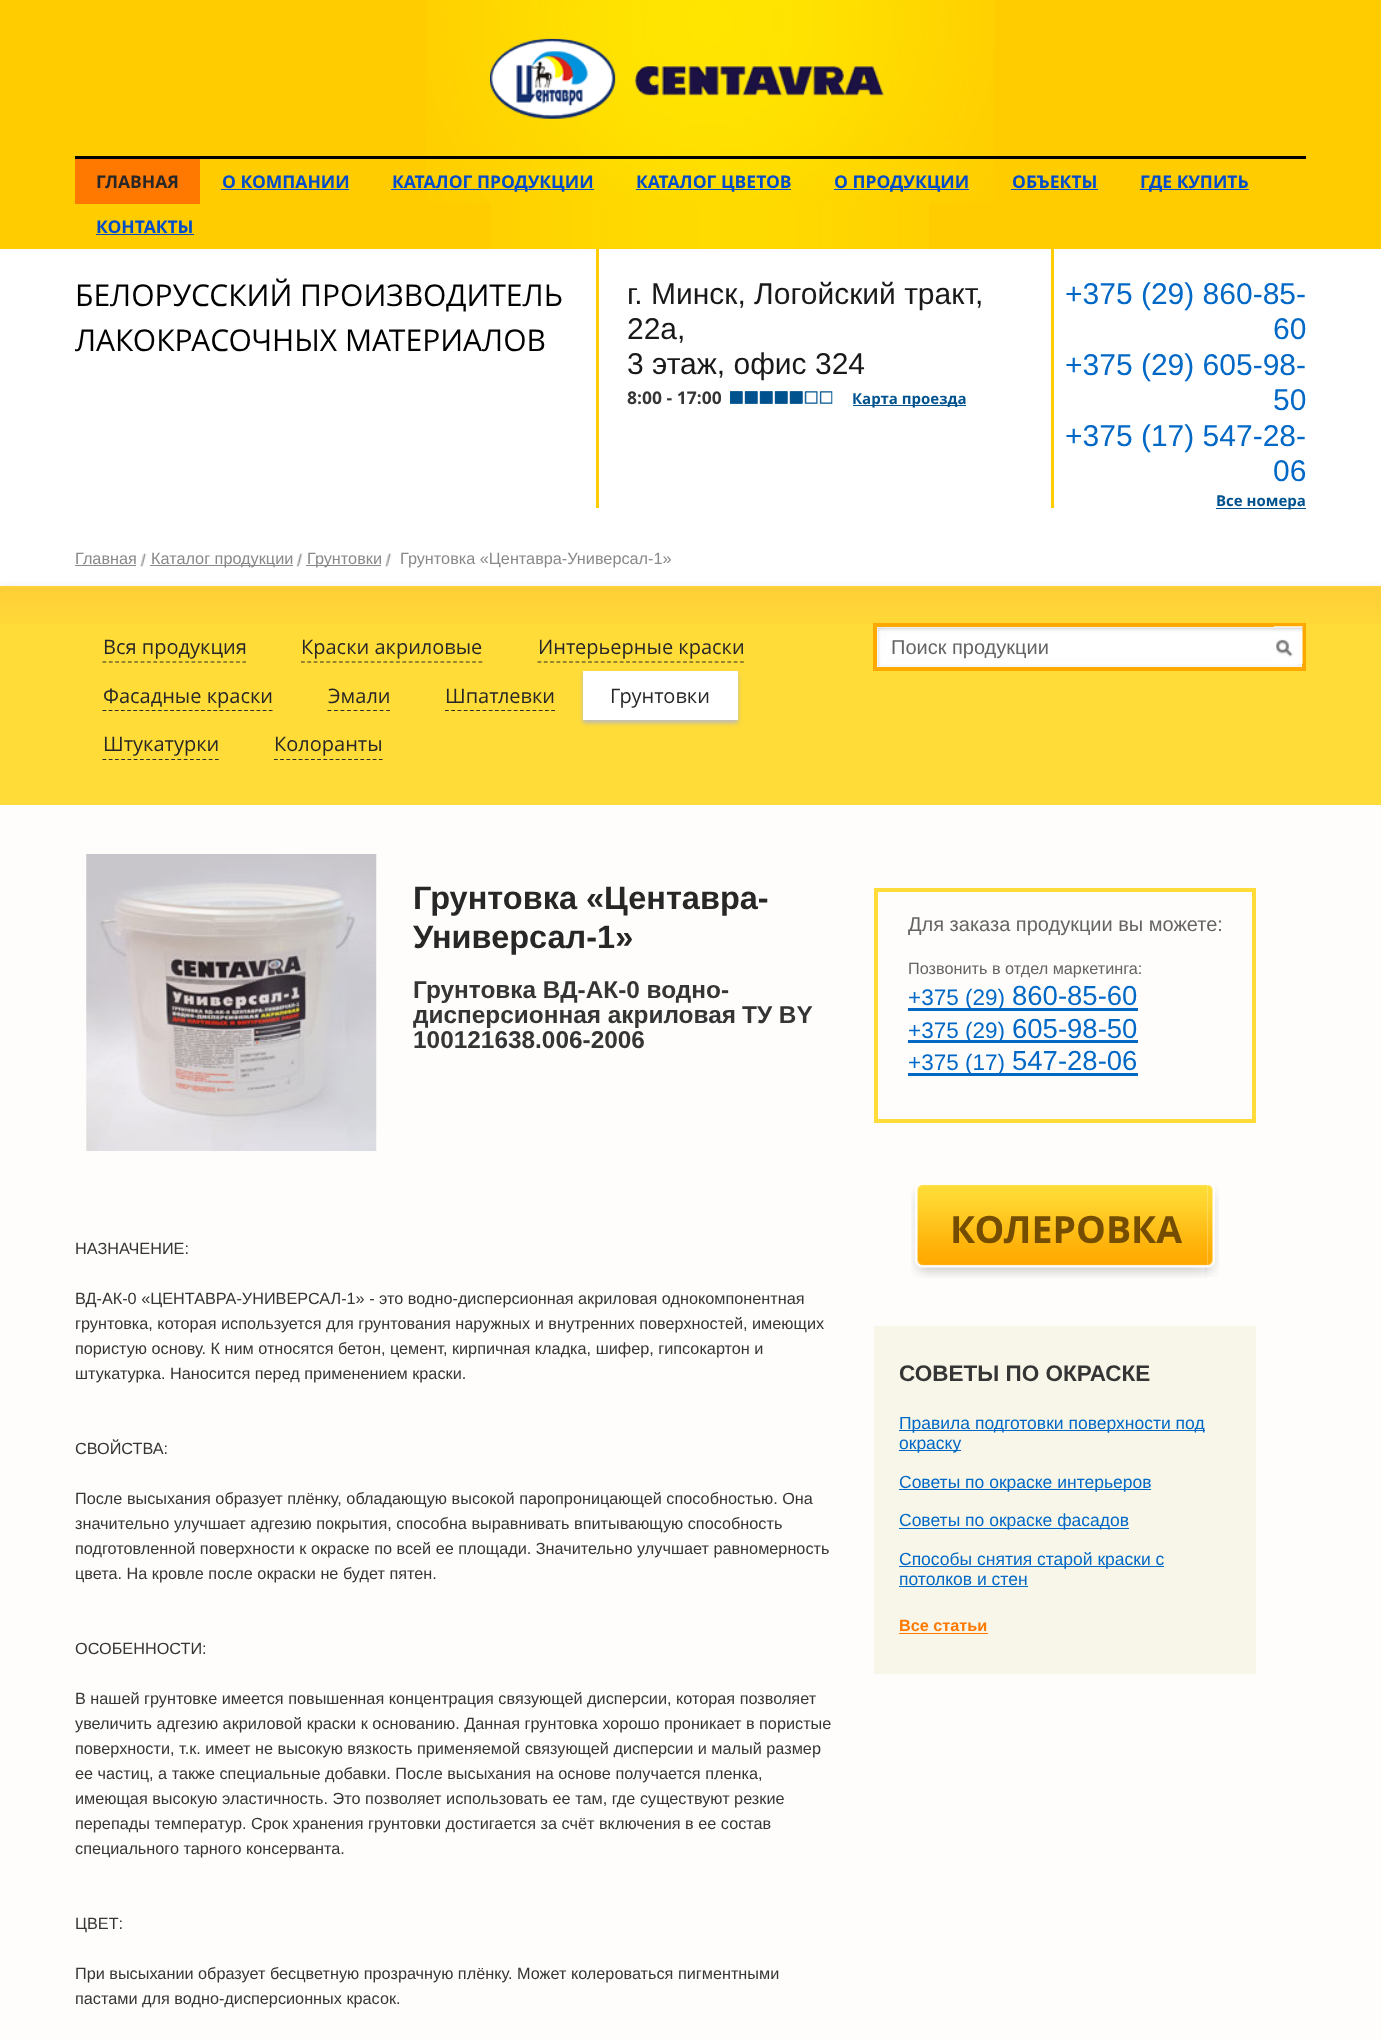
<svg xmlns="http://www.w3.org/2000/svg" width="1381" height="2040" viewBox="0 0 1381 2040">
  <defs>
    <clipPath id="clip1"><rect x="413" y="879" width="423" height="229"/></clipPath>
  </defs>
  <rect width="100%" height="100%" fill="rgb(255,255,255)"/>
  <rect x="0" y="0" width="1381" height="249" fill="rgb(255,204,0)"/>
  <image x="491" y="203" width="438" height="46" href="pic1.png"/>
  <image x="426" y="0" width="568" height="203" href="pic2.png"/>
  <image x="490" y="38" width="394" height="81" href="pic3.png"/>
  <rect x="75" y="156" width="1231" height="3" fill="rgb(0,0,0)"/>
  <rect x="75" y="159" width="125" height="45" fill="rgb(255,120,0)"/>
  <text x="96" y="188" font-family="Open Sans" font-size="17.5" font-weight="bold" fill="rgb(40,39,39)">ГЛАВНАЯ</text>
  <text x="222" y="188" font-family="Open Sans" font-size="17.5" font-weight="bold" fill="rgb(0,76,203)">О КОМПАНИИ</text>
  <rect x="221" y="189" width="128" height="1" fill="rgb(0,76,203)"/>
  <rect x="391" y="189" width="203" height="1" fill="rgb(0,76,203)"/>
  <text x="392" y="188" font-family="Open Sans" font-size="17.5" font-weight="bold" fill="rgb(0,76,203)">КАТАЛОГ ПРОДУКЦИИ</text>
  <rect x="636" y="189" width="155" height="1" fill="rgb(0,76,203)"/>
  <text x="636" y="188" font-family="Open Sans" font-size="17.5" font-weight="bold" fill="rgb(0,76,203)">КАТАЛОГ ЦВЕТОВ</text>
  <rect x="834" y="189" width="135" height="1" fill="rgb(0,76,203)"/>
  <g font-family="Open Sans" font-size="17.5" font-weight="bold" fill="rgb(0,76,203)">
    <text x="834" y="188">О ПРОДУКЦИИ</text>
    <text x="1012" y="188">ОБЪЕКТЫ</text>
  </g>
  <rect x="1011" y="189" width="87" height="1" fill="rgb(0,76,203)"/>
  <rect x="1140" y="189" width="109" height="1" fill="rgb(0,76,203)"/>
  <g font-family="Open Sans" font-size="17.5" font-weight="bold" fill="rgb(0,76,203)">
    <text x="1140" y="188">ГДЕ КУПИТЬ</text>
    <text x="96" y="233">КОНТАКТЫ</text>
  </g>
  <rect x="96" y="234" width="98" height="1" fill="rgb(0,76,203)"/>
  <g font-family="Open Sans" font-size="30" fill="rgb(1,1,1)">
    <text>
      <tspan x="75" y="306">БЕЛОРУССКИЙ ПРОИЗВОДИТЕЛЬ</tspan>
      <tspan x="75" y="351">ЛАКОКРАСОЧНЫХ МАТЕРИАЛОВ</tspan>
    </text>
  </g>
  <rect x="596" y="249" width="3" height="259" fill="rgb(255,204,0)"/>
  <g font-family="Liberation Sans" font-size="30" fill="rgb(25,25,25)">
    <text>
      <tspan x="627" y="304">г. Минск, Логойский тракт,</tspan>
      <tspan x="627" y="339">22а,</tspan>
      <tspan x="627" y="374">3 этаж, офис 324</tspan>
    </text>
  </g>
  <text x="627" y="404" font-family="Open Sans" font-size="17.5" font-weight="bold" fill="rgb(53,53,53)">8:00 - 17:00</text>
  <image x="730" y="391" width="103" height="13" href="pic4.png"/>
  <image x="730" y="391" width="75" height="13" href="pic5.png"/>
  <rect x="853" y="405" width="113" height="1" fill="rgb(0,82,142)"/>
  <text x="852" y="404" font-family="Open Sans" font-size="15" font-weight="bold" fill="rgb(0,82,142)">Карта проезда</text>
  <rect x="1051" y="249" width="3" height="259" fill="rgb(255,204,0)"/>
  <g font-family="Liberation Sans" font-size="30" fill="rgb(2,104,198)">
    <text x="1065" y="304">+375 (29) 860-85-</text>
    <text x="1273" y="339">60</text>
    <text x="1065" y="375">+375 (29) 605-98-</text>
    <text x="1273" y="410">50</text>
    <text x="1065" y="446">+375 (17) 547-28-</text>
    <text x="1273" y="481">06</text>
  </g>
  <rect x="1216" y="508" width="90" height="1" fill="rgb(0,82,142)"/>
  <text x="1216" y="506" font-family="Open Sans" font-size="15" font-weight="bold" fill="rgb(0,82,142)">Все номера</text>
  <image x="140" y="553" width="7" height="14" href="pic6.png"/>
  <text x="75" y="564" font-family="Liberation Sans" font-size="16.25" fill="rgb(137,137,137)">Главная</text>
  <rect x="75" y="565" width="61" height="1" fill="rgb(137,137,137)"/>
  <image x="296" y="553" width="7" height="14" href="pic7.png"/>
  <rect x="150" y="565" width="143" height="1" fill="rgb(137,137,137)"/>
  <text x="151" y="564" font-family="Liberation Sans" font-size="16.25" fill="rgb(137,137,137)">Каталог продукции</text>
  <image x="385" y="553" width="7" height="14" href="pic6.png"/>
  <rect x="306" y="565" width="75" height="1" fill="rgb(137,137,137)"/>
  <g font-family="Liberation Sans" font-size="16.25" fill="rgb(137,137,137)">
    <text x="307" y="564">Грунтовки</text>
    <text x="400" y="564">Грунтовка «Центавра-Универсал-1»</text>
  </g>
  <rect x="0" y="588" width="1381" height="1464" fill="rgb(221,221,221)" filter="blur(4px)"/>
  <rect x="0" y="805" width="1381" height="1235" fill="rgb(254,253,251)"/>
  <rect x="0" y="586" width="1381" height="219" fill="rgb(255,220,55)"/>
  <image x="0" y="586" width="1381" height="38" href="pic8.png"/>
  <path d="M102.5 662H246" fill="none" stroke="rgb(44,44,44)" stroke-width="1.2" stroke-dasharray="3.75 2.61"/>
  <text x="103" y="654" font-family="Open Sans" font-size="20" fill="rgb(40,39,39)">Вся продукция</text>
  <path d="M301 662H482.5" fill="none" stroke="rgb(44,44,44)" stroke-width="1.2" stroke-dasharray="3.75 2.59"/>
  <text x="301" y="654" font-family="Open Sans" font-size="20" fill="rgb(40,39,39)">Краски акриловые</text>
  <path d="M537.5 662H744" fill="none" stroke="rgb(44,44,44)" stroke-width="1.2" stroke-dasharray="3.75 2.58"/>
  <text x="538" y="654" font-family="Open Sans" font-size="20" fill="rgb(40,39,39)">Интерьерные краски</text>
  <path d="M102.5 710.5H272.5" fill="none" stroke="rgb(44,44,44)" stroke-width="1.2" stroke-dasharray="3.75 2.41"/>
  <text x="103" y="703" font-family="Open Sans" font-size="20" fill="rgb(40,39,39)">Фасадные краски</text>
  <path d="M327.5 710.5H390" fill="none" stroke="rgb(44,44,44)" stroke-width="1.2" stroke-dasharray="3.75 2.78"/>
  <text x="328" y="703" font-family="Open Sans" font-size="20" fill="rgb(40,39,39)">Эмали</text>
  <path d="M445 710.5H555" fill="none" stroke="rgb(44,44,44)" stroke-width="1.2" stroke-dasharray="3.75 2.5"/>
  <text x="445" y="703" font-family="Open Sans" font-size="20" fill="rgb(40,39,39)">Шпатлевки</text>
  <rect x="583" y="674" width="155" height="49" fill="rgb(187,187,187)" filter="blur(2px)"/>
  <rect x="583" y="671" width="155" height="49" fill="rgb(255,255,255)"/>
  <text x="610" y="703" font-family="Open Sans" font-size="20" fill="rgb(40,39,39)">Грунтовки</text>
  <path d="M102.5 759.5H219" fill="none" stroke="rgb(44,44,44)" stroke-width="1.2" stroke-dasharray="3.75 2.5"/>
  <text x="103" y="751" font-family="Open Sans" font-size="20" fill="rgb(40,39,39)">Штукатурки</text>
  <path d="M274 759.5H382.5" fill="none" stroke="rgb(44,44,44)" stroke-width="1.2" stroke-dasharray="3.75 2.42"/>
  <text x="274" y="751" font-family="Open Sans" font-size="20" fill="rgb(40,39,39)">Колоранты</text>
  <image x="877" y="627" width="425" height="40" href="pic9.png"/>
  <rect x="875" y="625" width="429" height="44" fill="none" stroke="rgb(255,169,0)" stroke-width="4"/>
  <text x="891" y="654" font-family="Liberation Sans" font-size="20" fill="rgb(101,100,100)">Поиск продукции</text>
  <image x="1273" y="626" width="30" height="38" href="pic10.png"/>
  <image x="86" y="854" width="291" height="297" href="pic11.png"/>
  <g font-family="Liberation Sans" font-size="32.5" font-weight="bold" fill="rgb(40,39,39)">
    <text>
      <tspan x="413" y="909">Грунтовка «Центавра-</tspan>
      <tspan x="413" y="948">Универсал-1»</tspan>
    </text>
  </g>
  <text x="413" y="998" font-family="Liberation Sans" font-size="24.4" font-weight="bold" fill="rgb(53,53,53)">Грунтовка ВД-АК-0 водно-</text>
  <g clip-path="url(#clip1)">
    <text x="413" y="1023" font-family="Liberation Sans" font-size="24.4" font-weight="bold" fill="rgb(53,53,53)">дисперсионная акриловая</text>
  </g>
  <g font-family="Liberation Sans" font-size="24.4" font-weight="bold" fill="rgb(53,53,53)">
    <text x="742" y="1023">ТУ BY</text>
    <text x="413" y="1048">100121638.006-2006</text>
  </g>
  <g font-family="Liberation Sans" font-size="16.25" fill="rgb(53,53,53)">
    <text x="75" y="1254">НАЗНАЧЕНИЕ:</text>
    <text>
      <tspan x="75" y="1304">ВД-АК-0 «ЦЕНТАВРА-УНИВЕРСАЛ-1» - это водно-дисперсионная акриловая однокомпонентная</tspan>
      <tspan x="75" y="1329">грунтовка, которая используется для грунтования наружных и внутренних поверхностей, имеющих</tspan>
      <tspan x="75" y="1354">пористую основу. К ним относятся бетон, цемент, кирпичная кладка, шифер, гипсокартон и</tspan>
      <tspan x="75" y="1379">штукатурка. Наносится перед применением краски.</tspan>
    </text>
    <text x="75" y="1454">СВОЙСТВА:</text>
    <text>
      <tspan x="75" y="1504">После высыхания образует плёнку, обладающую высокой паропроницающей способностью. Она</tspan>
      <tspan x="75" y="1529">значительно улучшает адгезию покрытия, способна выравнивать впитывающую способность</tspan>
      <tspan x="75" y="1554">подготовленной поверхности к окраске по всей ее площади. Значительно улучшает равномерность</tspan>
      <tspan x="75" y="1579">цвета. На кровле после окраски не будет пятен.</tspan>
    </text>
    <text x="75" y="1654">ОСОБЕННОСТИ:</text>
    <text>
      <tspan x="75" y="1704">В нашей грунтовке имеется повышенная концентрация связующей дисперсии, которая позволяет</tspan>
      <tspan x="75" y="1729">увеличить адгезию акриловой краски к основанию. Данная грунтовка хорошо проникает в пористые</tspan>
      <tspan x="75" y="1754">поверхности, т.к. имеет не высокую вязкость применяемой связующей дисперсии и малый размер</tspan>
      <tspan x="75" y="1779">ее частиц, а также специальные добавки. После высыхания на основе получается пленка,</tspan>
      <tspan x="75" y="1804">имеющая высокую эластичность. Это позволяет использовать ее там, где существуют резкие</tspan>
      <tspan x="75" y="1829">перепады температур. Срок хранения грунтовки достигается за счёт включения в ее состав</tspan>
      <tspan x="75" y="1854">специального тарного консерванта.</tspan>
    </text>
    <text x="75" y="1929">ЦВЕТ:</text>
    <text>
      <tspan x="75" y="1979">При высыхании образует бесцветную прозрачную плёнку. Может колероваться пигментными</tspan>
      <tspan x="75" y="2004">пастами для водно-дисперсионных красок.</tspan>
    </text>
  </g>
  <rect x="876" y="890" width="378" height="231" fill="none" stroke="rgb(255,220,55)" stroke-width="4"/>
  <text x="908" y="931" font-family="Liberation Sans" font-size="20" fill="rgb(101,100,100)">Для заказа продукции вы можете:</text>
  <text x="908" y="974" font-family="Liberation Sans" font-size="16.25" fill="rgb(101,100,100)">Позвонить в отдел маркетинга:</text>
  <rect x="908" y="1008" width="230" height="3" fill="rgb(2,104,198)"/>
  <text x="908" y="1005" font-family="Liberation Sans" font-size="22.5" fill="rgb(2,104,198)">+375 (29)</text>
  <text x="1012" y="1005" font-family="Liberation Sans" font-size="27.5" fill="rgb(2,104,198)">860-85-60</text>
  <rect x="908" y="1040" width="230" height="3" fill="rgb(2,104,198)"/>
  <text x="908" y="1038" font-family="Liberation Sans" font-size="22.5" fill="rgb(2,104,198)">+375 (29)</text>
  <text x="1012" y="1038" font-family="Liberation Sans" font-size="27.5" fill="rgb(2,104,198)">605-98-50</text>
  <rect x="908" y="1073" width="230" height="3" fill="rgb(2,104,198)"/>
  <text x="908" y="1070" font-family="Liberation Sans" font-size="22.5" fill="rgb(2,104,198)">+375 (17)</text>
  <text x="1012" y="1070" font-family="Liberation Sans" font-size="27.5" fill="rgb(2,104,198)">547-28-06</text>
  <image x="1207" y="1184" width="12" height="93" href="pic12.png"/>
  <image x="911" y="1184" width="297" height="94" href="pic13.png"/>
  <text x="950" y="1243" font-family="Open Sans" font-size="37.5" font-weight="bold" fill="rgb(116,77,1)">КОЛЕРОВКА</text>
  <rect x="874" y="1326" width="382" height="348" fill="rgb(248,246,232)"/>
  <text x="899" y="1381" font-family="Liberation Sans" font-size="22.5" font-weight="bold" fill="rgb(53,53,53)">СОВЕТЫ ПО ОКРАСКЕ</text>
  <rect x="899" y="1430" width="306" height="1" fill="rgb(2,104,198)"/>
  <text x="899" y="1429" font-family="Liberation Sans" font-size="17.5" fill="rgb(2,104,198)">Правила подготовки поверхности под</text>
  <rect x="899" y="1450" width="62" height="1" fill="rgb(2,104,198)"/>
  <text x="899" y="1449" font-family="Liberation Sans" font-size="17.5" fill="rgb(2,104,198)">окраску</text>
  <rect x="899" y="1489" width="252" height="1" fill="rgb(2,104,198)"/>
  <text x="899" y="1488" font-family="Liberation Sans" font-size="17.5" fill="rgb(2,104,198)">Советы по окраске интерьеров</text>
  <rect x="899" y="1528" width="230" height="1" fill="rgb(2,104,198)"/>
  <text x="899" y="1526" font-family="Liberation Sans" font-size="17.5" fill="rgb(2,104,198)">Советы по окраске фасадов</text>
  <rect x="899" y="1566" width="265" height="1" fill="rgb(2,104,198)"/>
  <g font-family="Liberation Sans" font-size="17.5" fill="rgb(2,104,198)">
    <text>
      <tspan x="899" y="1565">Способы снятия старой краски с</tspan>
      <tspan x="899" y="1585">потолков и стен</tspan>
    </text>
  </g>
  <rect x="899" y="1586" width="129" height="1" fill="rgb(2,104,198)"/>
  <text x="899" y="1631" font-family="Liberation Sans" font-size="16.25" font-weight="bold" fill="rgb(255,120,0)">Все статьи</text>
  <rect x="899" y="1633" width="89" height="1" fill="rgb(255,120,0)"/>
</svg>
